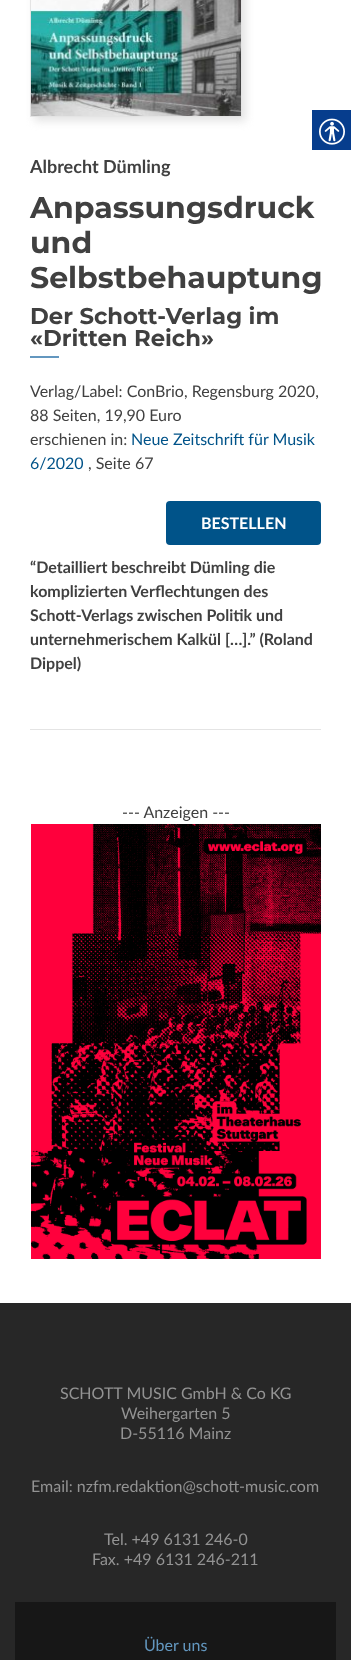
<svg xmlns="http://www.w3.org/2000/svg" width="351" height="1660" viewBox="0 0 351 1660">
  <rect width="100%" height="100%" fill="rgb(255,255,255)"/>
  <rect x="312" y="110" width="39" height="40" fill="rgb(6,61,141)"/>
  <image x="319" y="118" width="26" height="27" href="pic1.png"/>
  <rect x="30" y="729" width="291" height="1" fill="rgb(228,228,228)"/>
  <rect x="34" y="-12" width="212" height="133" fill="rgba(200,200,200,0.5)" filter="blur(4px)"/>
  <rect x="30.5" y="-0.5" width="211" height="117" fill="none" stroke="rgb(228,228,228)"/>
  <image x="31" y="0" width="210" height="116" href="pic2.png"/>
  <text x="30" y="173" font-family="Lato" font-size="18" font-weight="bold" fill="rgb(64,64,64)">Albrecht Dümling</text>
  <g font-family="Montserrat" font-size="30" font-weight="bold" fill="rgb(64,64,64)">
    <text>
      <tspan x="30" y="218">Anpassungsdruck</tspan>
      <tspan x="30" y="253">und</tspan>
      <tspan x="30" y="288">Selbstbehauptung</tspan>
    </text>
  </g>
  <g font-family="Montserrat" font-size="22.75" font-weight="bold" fill="rgb(64,64,64)">
    <text>
      <tspan x="30" y="324">Der Schott-Verlag im</tspan>
      <tspan x="30" y="346">«Dritten Reich»</tspan>
    </text>
  </g>
  <rect x="30" y="356" width="29" height="2" fill="rgb(99,151,191)"/>
  <g font-family="Lato" font-size="16" fill="rgb(64,64,64)">
    <text>
      <tspan x="30" y="397">Verlag/Label: ConBrio, Regensburg 2020,</tspan>
      <tspan x="30" y="421">88 Seiten, 19,90 Euro</tspan>
      <tspan x="30" y="445">erschienen in:</tspan>
    </text>
  </g>
  <g font-family="Lato" font-size="16" fill="rgb(0,83,137)">
    <text x="131" y="445">Neue Zeitschrift für Musik</text>
    <text x="30" y="469">6/2020</text>
  </g>
  <text x="88" y="469" font-family="Lato" font-size="16" fill="rgb(64,64,64)">, Seite 67</text>
  <rect x="166" y="501" width="155" height="44" rx="4" fill="rgb(0,83,137)"/>
  <text x="201" y="529" font-family="Lato" font-size="16" font-weight="bold" fill="rgb(255,255,255)">BESTELLEN</text>
  <g font-family="Lato" font-size="16" font-weight="bold" fill="rgb(64,64,64)">
    <text>
      <tspan x="30" y="573">“Detailliert beschreibt Dümling die</tspan>
      <tspan x="30" y="597">komplizierten Verflechtungen des</tspan>
      <tspan x="30" y="621">Schott-Verlags zwischen Politik und</tspan>
      <tspan x="30" y="645">unternehmerischem Kalkül […].” (Roland</tspan>
      <tspan x="30" y="669">Dippel)</tspan>
    </text>
  </g>
  <text x="122" y="818" font-family="Lato" font-size="16" fill="rgb(64,64,64)">--- Anzeigen ---</text>
  <image x="31" y="824" width="290" height="435" href="pic3.png"/>
  <rect x="0" y="1303" width="351" height="357" fill="rgb(39,39,39)"/>
  <g font-family="Lato" font-size="16" fill="rgb(147,147,147)">
    <text x="60" y="1399">SCHOTT MUSIC GmbH &amp; Co KG</text>
    <text x="121" y="1419">Weihergarten 5</text>
    <text x="120" y="1439">D-55116 Mainz</text>
    <text x="31" y="1492">Email: nzfm.redaktion@schott-music.com</text>
    <text x="104" y="1545">Tel. +49 6131 246-0</text>
    <text x="92" y="1565">Fax. +49 6131 246-211</text>
  </g>
  <rect x="15" y="1602" width="321" height="58" fill="rgb(23,23,23)"/>
  <text x="144" y="1651" font-family="Lato" font-size="16" fill="rgb(99,151,191)">Über uns</text>
</svg>
